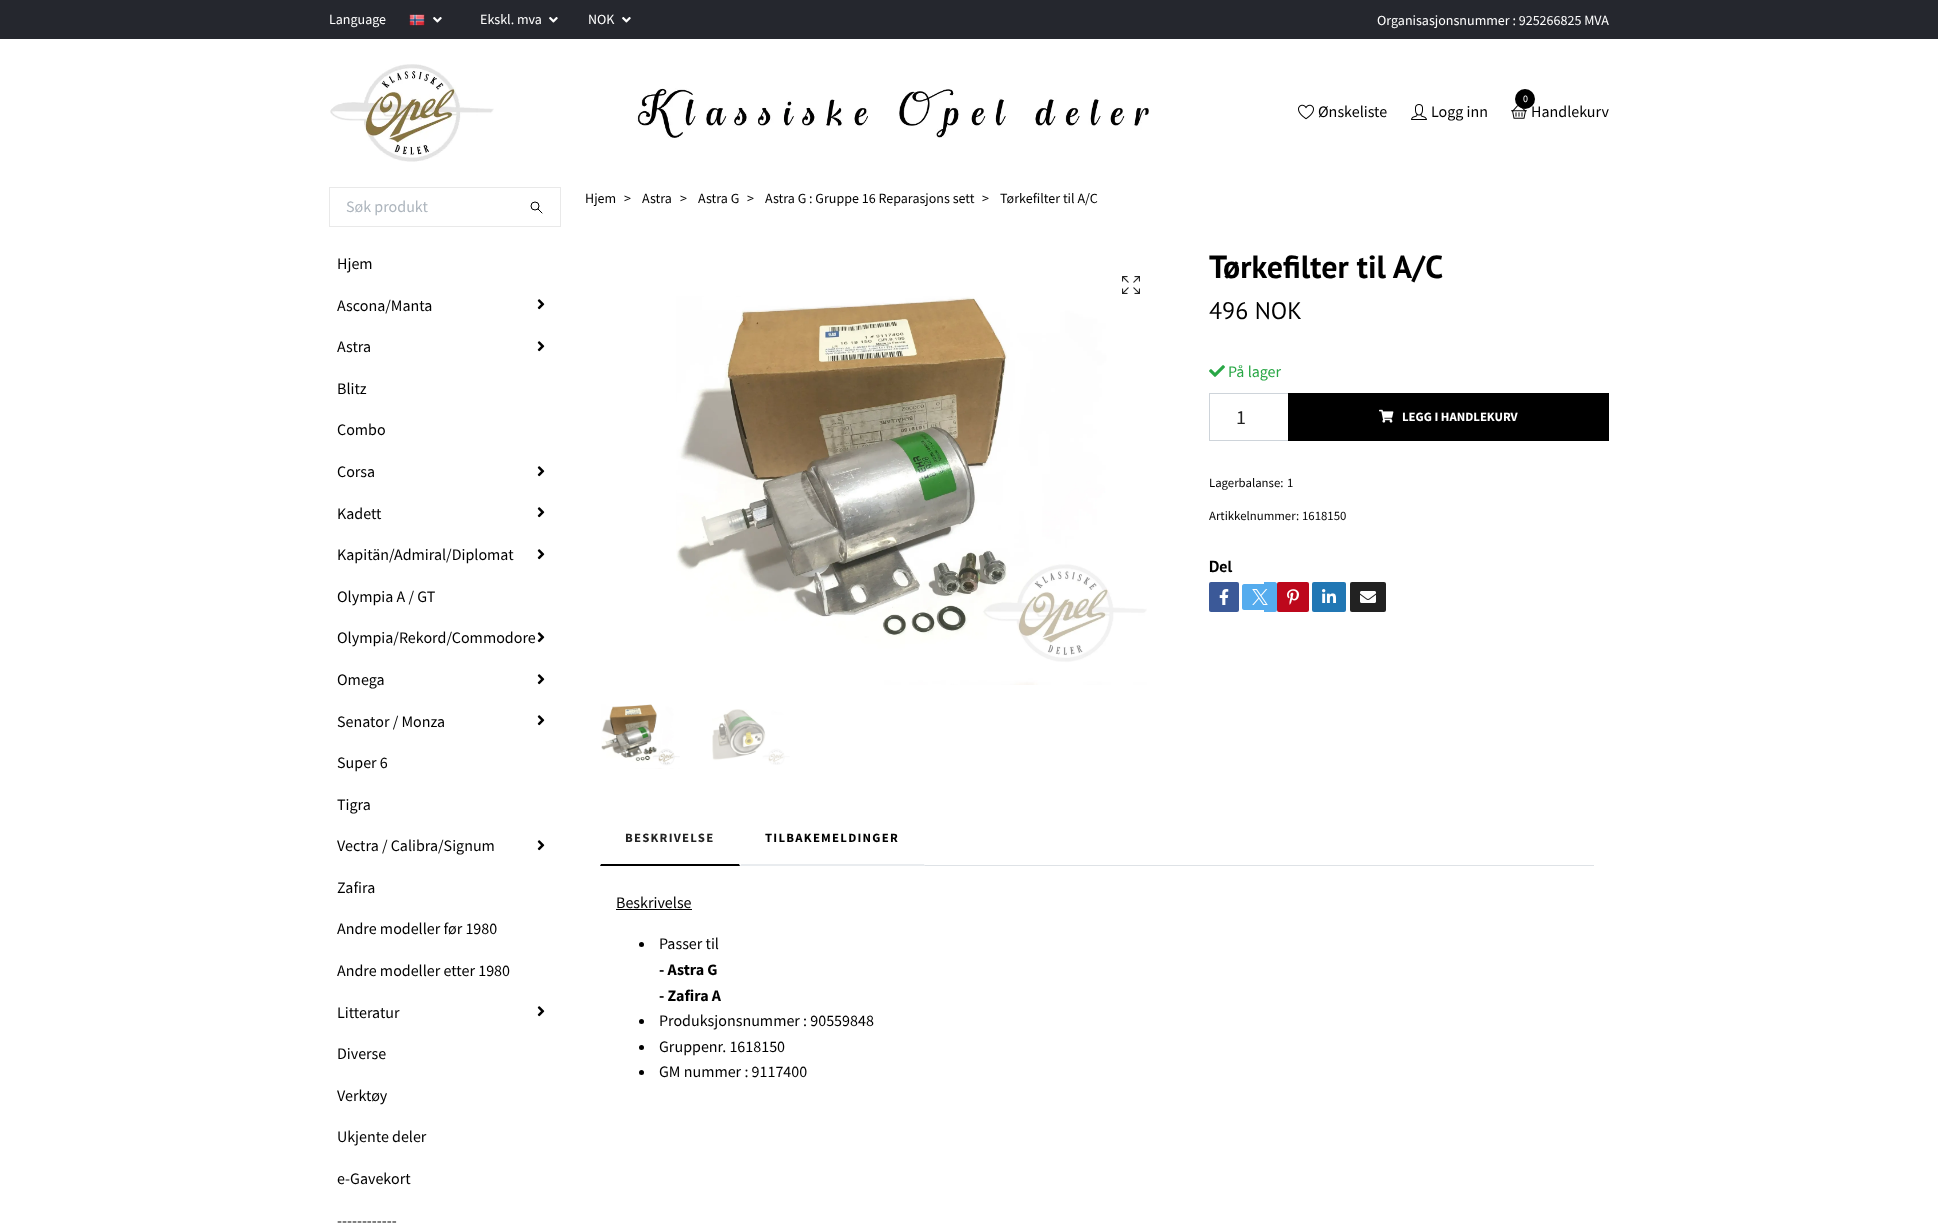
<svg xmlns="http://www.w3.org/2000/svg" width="1938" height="1230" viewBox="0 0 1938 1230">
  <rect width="100%" height="100%" fill="rgb(255,255,255)"/>
  <rect x="0" y="0" width="1938" height="39" fill="rgb(37,39,46)"/>
  <text x="329" y="24" font-family="Source Sans Pro" font-size="14" fill="rgb(255,255,255)">Language</text>
  <image x="409" y="14" width="16" height="12" href="pic1.png"/>
  <image x="433" y="17" width="9" height="6" href="pic2.png"/>
  <text x="480" y="24" font-family="Source Sans Pro" font-size="14" fill="rgb(255,255,255)">Ekskl. mva</text>
  <image x="549" y="17" width="9" height="6" href="pic2.png"/>
  <text x="588" y="24" font-family="Source Sans Pro" font-size="14" fill="rgb(255,255,255)">NOK</text>
  <image x="622" y="17" width="9" height="6" href="pic2.png"/>
  <text x="1377" y="25" font-family="Source Sans Pro" font-size="14" fill="rgb(255,255,255)">Organisasjonsnummer : 925266825 MVA</text>
  <image x="330" y="64" width="164" height="98" href="pic3.png"/>
  <image x="636" y="88" width="513" height="50" href="pic4.png"/>
  <image x="1298" y="104" width="16" height="16" href="pic5.png"/>
  <text x="1318" y="117" font-family="Source Sans Pro" font-size="16" fill="rgb(0,0,0)">Ønskeliste</text>
  <image x="1411" y="104" width="16" height="16" href="pic6.png"/>
  <text x="1431" y="117" font-family="Source Sans Pro" font-size="16" fill="rgb(0,0,0)">Logg inn</text>
  <image x="1511" y="105" width="16" height="14" href="pic7.png"/>
  <circle cx="1525" cy="99" r="10" fill="rgb(0,0,0)"/>
  <text x="1523" y="102" font-family="Source Sans Pro" font-size="10" fill="rgb(255,255,255)">0</text>
  <text x="1531" y="117" font-family="Source Sans Pro" font-size="16" fill="rgb(0,0,0)">Handlekurv</text>
  <rect x="329.5" y="187.5" width="231" height="39" fill="none" stroke="rgb(233,233,233)"/>
  <text x="346" y="212" font-family="Source Sans Pro" font-size="16" fill="rgb(173,181,189)">Søk produkt</text>
  <path d="M538 209L542 213" fill="none" stroke="rgb(0,0,0)" stroke-linecap="round" stroke-linejoin="round"/>
  <circle cx="535" cy="206" r="4" fill="none" stroke="rgb(0,0,0)"/>
  <g font-family="Source Sans Pro" font-size="16" fill="rgb(0,0,0)">
    <text x="337" y="269">Hjem</text>
    <text x="337" y="311">Ascona/Manta</text>
  </g>
  <image x="537" y="299" width="8" height="11" href="pic8.png"/>
  <text x="337" y="352" font-family="Source Sans Pro" font-size="16" fill="rgb(0,0,0)">Astra</text>
  <image x="537" y="341" width="8" height="11" href="pic8.png"/>
  <g font-family="Source Sans Pro" font-size="16" fill="rgb(0,0,0)">
    <text x="337" y="394">Blitz</text>
    <text x="337" y="435">Combo</text>
    <text x="337" y="477">Corsa</text>
  </g>
  <image x="537" y="466" width="8" height="11" href="pic8.png"/>
  <text x="337" y="519" font-family="Source Sans Pro" font-size="16" fill="rgb(0,0,0)">Kadett</text>
  <image x="537" y="507" width="8" height="11" href="pic8.png"/>
  <text x="337" y="560" font-family="Source Sans Pro" font-size="16" fill="rgb(0,0,0)">Kapitän/Admiral/Diplomat</text>
  <image x="537" y="549" width="8" height="11" href="pic8.png"/>
  <g font-family="Source Sans Pro" font-size="16" fill="rgb(0,0,0)">
    <text x="337" y="602">Olympia A / GT</text>
    <text x="337" y="643">Olympia/Rekord/Commodore</text>
  </g>
  <image x="537" y="632" width="8" height="11" href="pic8.png"/>
  <text x="337" y="685" font-family="Source Sans Pro" font-size="16" fill="rgb(0,0,0)">Omega</text>
  <image x="537" y="674" width="8" height="11" href="pic8.png"/>
  <text x="337" y="727" font-family="Source Sans Pro" font-size="16" fill="rgb(0,0,0)">Senator / Monza</text>
  <image x="537" y="715" width="8" height="11" href="pic8.png"/>
  <g font-family="Source Sans Pro" font-size="16" fill="rgb(0,0,0)">
    <text x="337" y="768">Super 6</text>
    <text x="337" y="810">Tigra</text>
    <text x="337" y="851">Vectra / Calibra/Signum</text>
  </g>
  <image x="537" y="840" width="8" height="11" href="pic8.png"/>
  <g font-family="Source Sans Pro" font-size="16" fill="rgb(0,0,0)">
    <text x="337" y="893">Zafira</text>
    <text x="337" y="934">Andre modeller før 1980</text>
    <text x="337" y="976">Andre modeller etter 1980</text>
    <text x="337" y="1018">Litteratur</text>
  </g>
  <image x="537" y="1006" width="8" height="11" href="pic8.png"/>
  <g font-family="Source Sans Pro" font-size="16" fill="rgb(0,0,0)">
    <text x="337" y="1059">Diverse</text>
    <text x="337" y="1101">Verktøy</text>
    <text x="337" y="1142">Ukjente deler</text>
    <text x="337" y="1184">e-Gavekort</text>
    <text x="337" y="1226">------------</text>
  </g>
  <g font-family="Source Sans Pro" font-size="14" fill="rgb(0,0,0)">
    <text x="585" y="203">Hjem</text>
    <text x="624" y="203">&gt;</text>
    <text x="642" y="203">Astra</text>
    <text x="680" y="203">&gt;</text>
    <text x="698" y="203">Astra G</text>
    <text x="747" y="203">&gt;</text>
    <text x="765" y="203">Astra G : Gruppe 16 Reparasjons sett</text>
    <text x="982" y="203">&gt;</text>
    <text x="1000" y="203">Tørkefilter til A/C</text>
  </g>
  <image x="1122" y="276" width="18" height="18" href="pic9.png"/>
  <image x="676" y="296" width="471" height="389" href="pic10.png"/>
  <image x="601" y="704" width="79" height="65" href="pic11.png"/>
  <image x="712" y="709" width="78" height="56" href="pic12.png"/>
  <text x="1209" y="278" font-family="PT Sans" font-size="32" font-weight="bold" fill="rgb(0,0,0)">Tørkefilter til A/C</text>
  <text x="1209" y="319" font-family="PT Sans" font-size="24" fill="rgb(0,0,0)">496 NOK</text>
  <image x="1209" y="365" width="16" height="12" href="pic13.png"/>
  <text x="1228" y="377" font-family="Source Sans Pro" font-size="16" fill="rgb(40,167,69)">På lager</text>
  <rect x="1209.5" y="393.5" width="79" height="47" fill="none" stroke="rgb(206,212,218)"/>
  <text x="1236" y="424" font-family="Source Sans Pro" font-size="20" fill="rgb(34,34,34)">1</text>
  <rect x="1288" y="393" width="321" height="48" fill="rgb(0,0,0)"/>
  <image x="1379" y="409" width="15" height="14" href="pic14.png"/>
  <text x="1402" y="421" font-family="Source Sans Pro" font-size="12.75" font-weight="bold" fill="rgb(255,255,255)">LEGG I HANDLEKURV</text>
  <g font-family="Source Sans Pro" font-size="12.75" fill="rgb(0,0,0)">
    <text x="1209" y="487">Lagerbalanse:</text>
    <text x="1287" y="487">1</text>
    <text x="1209" y="520">Artikkelnummer:</text>
    <text x="1302" y="520">1618150</text>
  </g>
  <text x="1209" y="572" font-family="PT Sans" font-size="16" font-weight="bold" fill="rgb(0,0,0)">Del</text>
  <rect x="1209" y="582" width="30" height="30" rx="2" fill="rgb(59,89,152)"/>
  <image x="1219" y="589" width="10" height="16" href="pic15.png"/>
  <path d="M1244 584H1268V610H1244C1243 610 1242 609 1242 608V586C1242 585 1243 584 1244 584Z" fill="rgb(85,172,238)"/>
  <path d="M1264 582H1275C1276 582 1277 583 1277 584V610C1277 611 1276 612 1275 612H1264Z" fill="rgb(85,172,238)"/>
  <rect x="1277" y="582" width="32" height="30" rx="2" fill="rgb(189,8,28)"/>
  <image x="1287" y="589" width="12" height="16" href="pic16.png"/>
  <rect x="1312" y="582" width="34" height="30" rx="2" fill="rgb(33,119,180)"/>
  <image x="1322" y="589" width="14" height="14" href="pic17.png"/>
  <rect x="1350" y="582" width="36" height="30" rx="2" fill="rgb(34,34,34)"/>
  <image x="1360" y="591" width="16" height="12" href="pic18.png"/>
  <image x="1252" y="589" width="16" height="16" href="pic19.png"/>
  <rect x="740" y="865" width="854" height="1" fill="rgb(222,226,230)"/>
  <path d="M740 866H600L601 864H739Z" fill="rgb(0,0,0)"/>
  <text x="625" y="842" font-family="Source Sans Pro" font-size="12.75" font-weight="bold" letter-spacing="1.25" fill="rgb(34,34,34)">BESKRIVELSE</text>
  <path d="M925 810V866L924 864V811Z" fill="rgb(255,255,255)"/>
  <path d="M925 866H740L741 864H924Z" fill="rgb(233,236,239)"/>
  <path d="M740 866V810L741 811V864Z" fill="rgb(255,255,255)"/>
  <text x="765" y="842" font-family="Source Sans Pro" font-size="12.75" font-weight="bold" letter-spacing="1.25" fill="rgb(0,0,0)">TILBAKEMELDINGER</text>
  <text x="616" y="908" font-family="Source Sans Pro" font-size="16" fill="rgb(0,0,0)">Beskrivelse</text>
  <rect x="616" y="909" width="76" height="1" fill="rgb(0,0,0)"/>
  <circle cx="641.5" cy="944.5" r="2.5" fill="rgb(0,0,0)"/>
  <text x="659" y="949" font-family="Source Sans Pro" font-size="16" fill="rgb(0,0,0)">Passer til</text>
  <g font-family="Source Sans Pro" font-size="16" font-weight="bold" fill="rgb(0,0,0)">
    <text>
      <tspan x="659" y="975">- Astra G</tspan>
      <tspan x="659" y="1001">- Zafira A</tspan>
    </text>
  </g>
  <circle cx="641.5" cy="1021.5" r="2.5" fill="rgb(0,0,0)"/>
  <text x="659" y="1026" font-family="Source Sans Pro" font-size="16" fill="rgb(0,0,0)">Produksjonsnummer : 90559848</text>
  <circle cx="641.5" cy="1047.5" r="2.5" fill="rgb(0,0,0)"/>
  <text x="659" y="1052" font-family="Source Sans Pro" font-size="16" fill="rgb(0,0,0)">Gruppenr. 1618150</text>
  <circle cx="641.5" cy="1072.5" r="2.5" fill="rgb(0,0,0)"/>
  <text x="659" y="1077" font-family="Source Sans Pro" font-size="16" fill="rgb(0,0,0)">GM nummer : 9117400</text>
</svg>
